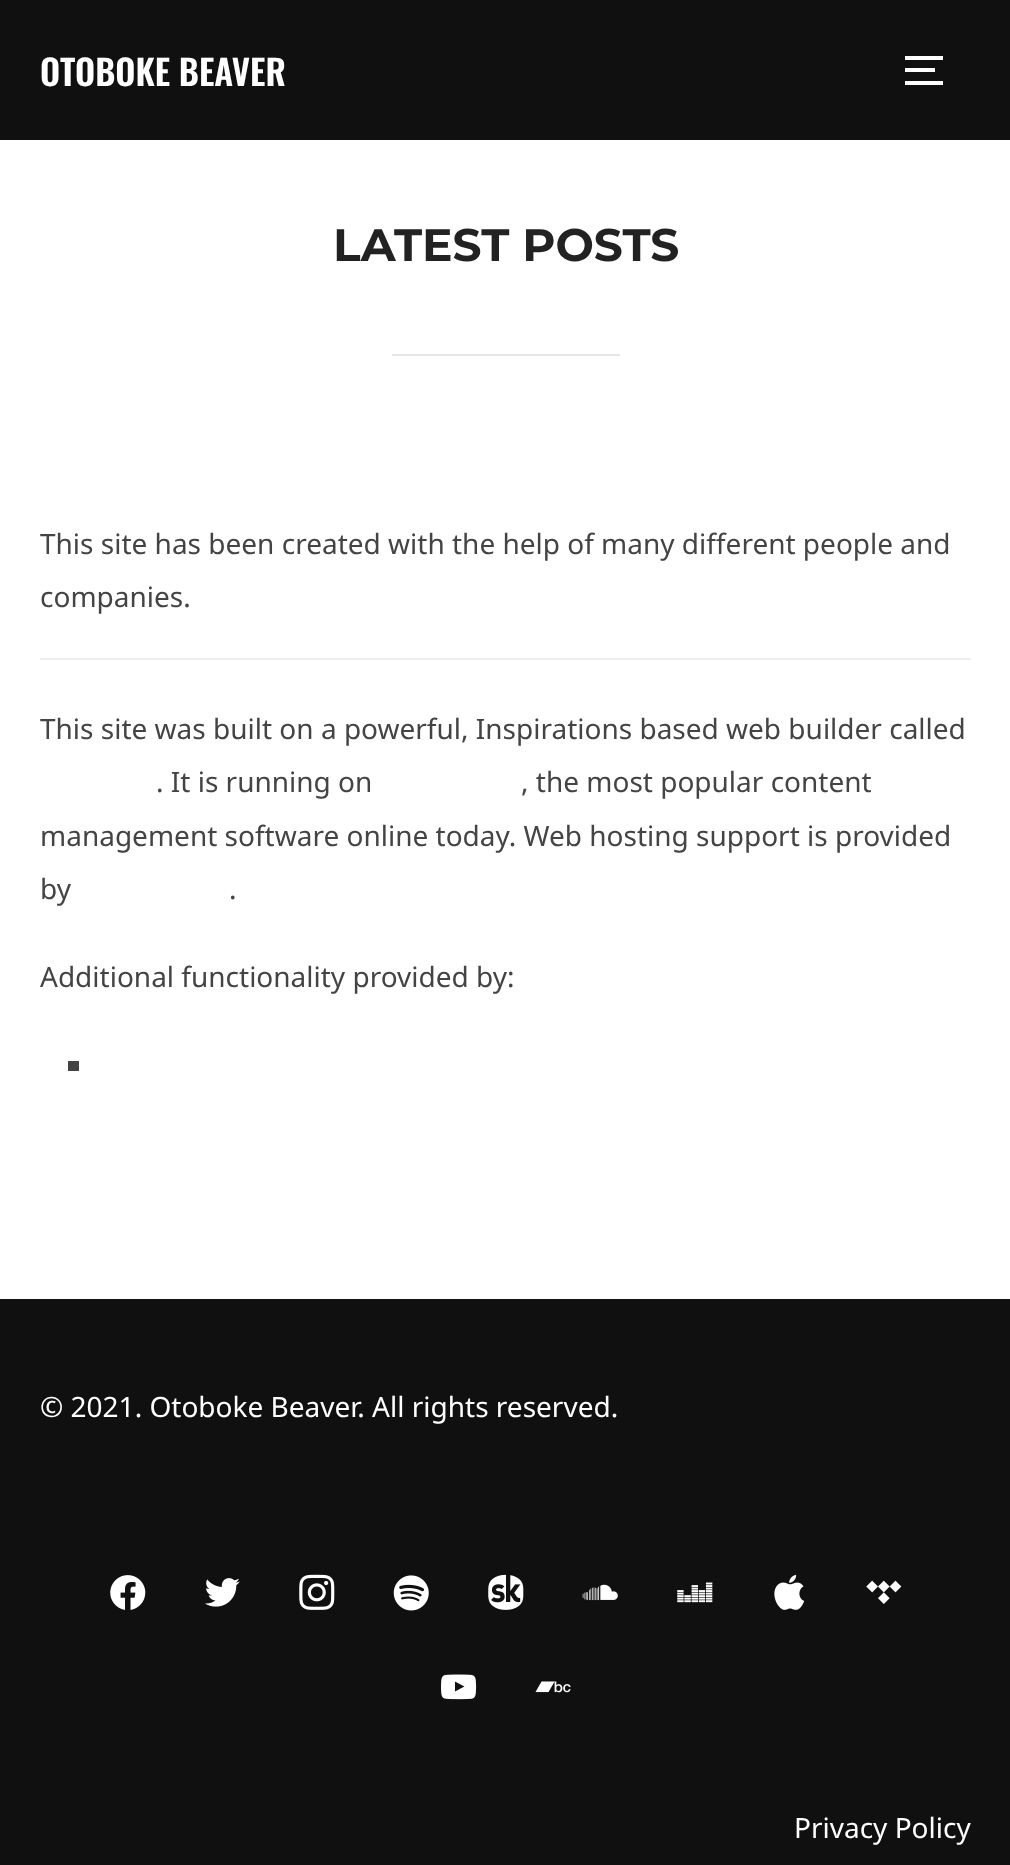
<svg xmlns="http://www.w3.org/2000/svg" width="1010" height="1865" viewBox="0 0 1010 1865">
  <rect width="100%" height="100%" fill="rgb(255,255,255)"/>
  <rect x="0" y="0" width="1010" height="140" fill="rgb(16,16,16)"/>
  <text x="40" y="86" font-family="Oswald" font-size="35" font-weight="600" fill="rgb(255,255,255)">OTOBOKE BEAVER</text>
  <rect x="905" y="56" width="38" height="4" fill="rgb(255,255,255)"/>
  <rect x="905" y="68" width="30" height="4" fill="rgb(255,255,255)"/>
  <rect x="905" y="81" width="38" height="4" fill="rgb(255,255,255)"/>
  <text x="333" y="261" font-family="Montserrat" font-size="45.5" font-weight="bold" fill="rgb(34,34,34)">LATEST POSTS</text>
  <rect x="392" y="354" width="228" height="2" fill="rgb(230,230,230)"/>
  <g font-family="Noto Sans" font-size="28" fill="rgb(68,68,68)">
    <text>
      <tspan x="40" y="554">This site has been created with the help of many different people and</tspan>
      <tspan x="40" y="607">companies.</tspan>
    </text>
  </g>
  <rect x="40" y="658" width="931" height="2" fill="rgb(238,238,238)"/>
  <g font-family="Noto Sans" font-size="28" fill="rgb(68,68,68)">
    <text x="40" y="739">This site was built on a powerful, Inspirations based web builder called</text>
    <text x="156" y="792">. It is running on</text>
    <text x="521" y="792">, the most popular content</text>
    <text>
      <tspan x="40" y="846">management software online today. Web hosting support is provided</tspan>
      <tspan x="40" y="899">by</tspan>
    </text>
    <text x="229" y="899">.</text>
    <text x="40" y="987">Additional functionality provided by:</text>
  </g>
  <rect x="68" y="1061" width="11" height="10" fill="rgb(68,68,68)"/>
  <rect x="0" y="1299" width="1010" height="566" fill="rgb(16,16,16)"/>
  <text x="40" y="1417" font-family="Noto Sans" font-size="28" fill="rgb(255,255,255)">© 2021. Otoboke Beaver. All rights reserved.</text>
  <image x="110" y="1575" width="36" height="35" href="pic1.png"/>
  <image x="205" y="1578" width="35" height="29" href="pic2.png"/>
  <image x="299" y="1574" width="36" height="36" href="pic3.png"/>
  <image x="393" y="1575" width="36" height="36" href="pic4.png"/>
  <image x="488" y="1574" width="36" height="36" href="pic5.png"/>
  <image x="582" y="1584" width="36" height="17" href="pic6.png"/>
  <image x="677" y="1582" width="36" height="21" href="pic7.png"/>
  <image x="774" y="1574" width="31" height="36" href="pic8.png"/>
  <image x="866" y="1580" width="36" height="24" href="pic9.png"/>
  <image x="441" y="1674" width="36" height="26" href="pic10.png"/>
  <image x="535" y="1681" width="36" height="12" href="pic11.png"/>
  <text x="794" y="1838" font-family="Noto Sans" font-size="28" fill="rgb(255,255,255)">Privacy Policy</text>
</svg>
